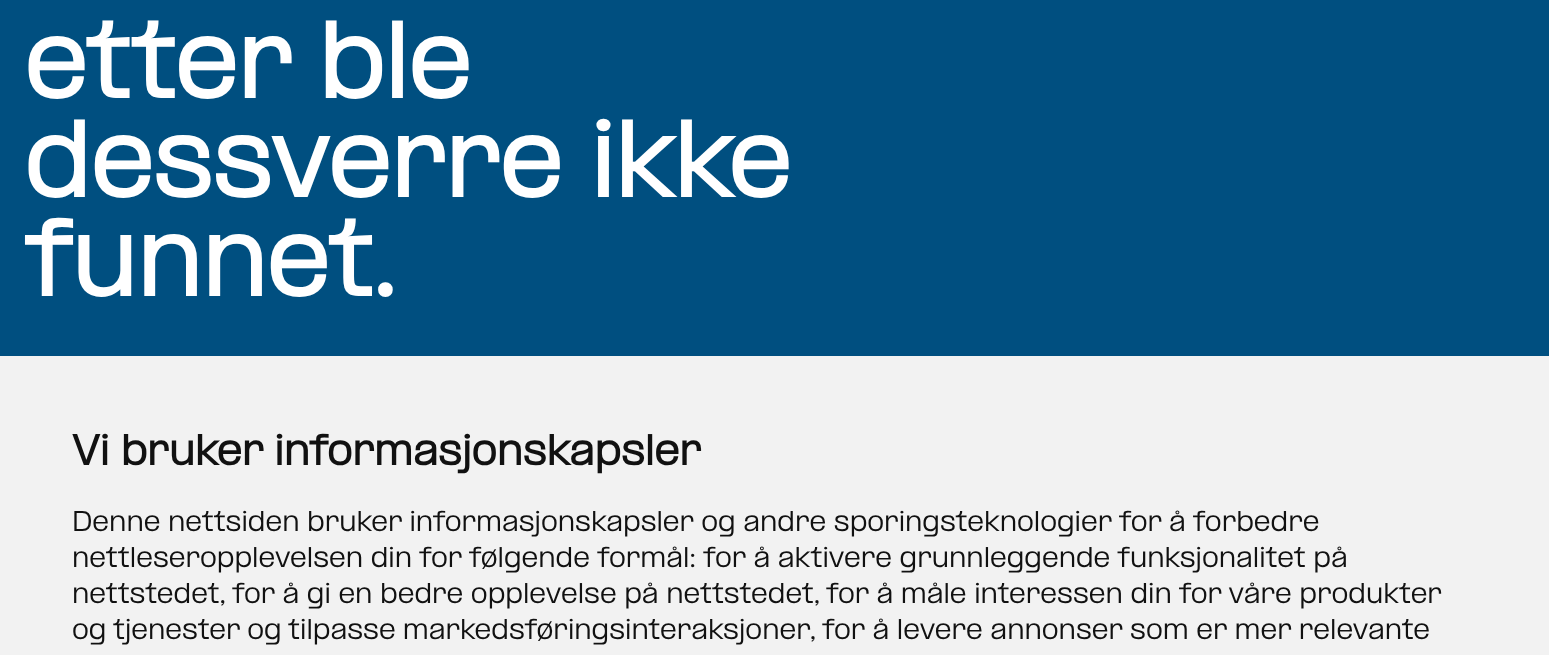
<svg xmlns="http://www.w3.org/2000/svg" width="1549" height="655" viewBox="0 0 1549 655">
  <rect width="100%" height="100%" fill="rgb(0,79,128)"/>
  <g font-family="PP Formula" font-size="90" font-weight="bold" fill="rgb(255,255,255)">
    <text>
      <tspan x="24" y="98">etter ble</tspan>
      <tspan x="24" y="197">dessverre ikke</tspan>
      <tspan x="24" y="296">funnet.</tspan>
    </text>
  </g>
  <rect x="0" y="356" width="1549" height="299" fill="rgb(242,242,242)"/>
  <text x="72" y="465" font-family="PP Formula" font-size="36" font-weight="bold" fill="rgb(17,17,17)">Vi bruker informasjonskapsler</text>
  <g font-family="PP Formula" font-size="24" fill="rgb(17,17,17)">
    <text>
      <tspan x="72" y="531">Denne nettsiden bruker informasjonskapsler og andre sporingsteknologier for å forbedre</tspan>
      <tspan x="72" y="567">nettleseropplevelsen din for følgende formål:</tspan>
    </text>
    <text x="703" y="567">for å aktivere grunnleggende funksjonalitet på</text>
    <text x="72" y="603">nettstedet,</text>
    <text x="232" y="603">for å gi en bedre opplevelse på nettstedet,</text>
    <text x="826" y="603">for å måle interessen din for våre produkter</text>
    <text x="72" y="639" word-spacing="-0.5">og tjenester og tilpasse markedsføringsinteraksjoner</text>
    <text x="810" y="639">,</text>
    <text x="822" y="639">for å levere annonser som er mer relevante</text>
  </g>
</svg>
